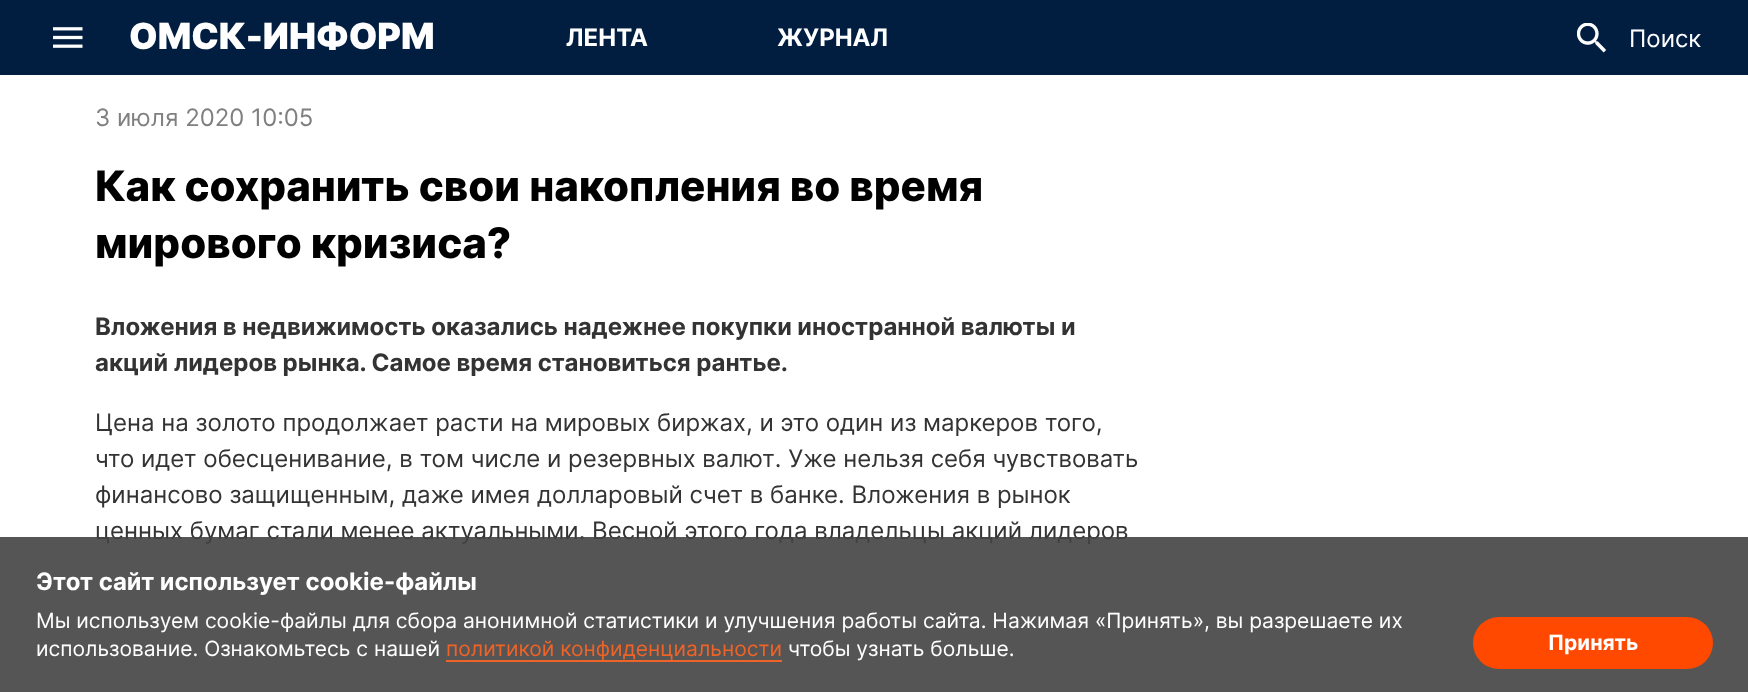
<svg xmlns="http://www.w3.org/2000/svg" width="1748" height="692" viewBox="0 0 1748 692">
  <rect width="100%" height="100%" fill="rgb(255,255,255)"/>
  <rect x="0" y="0" width="1748" height="75" fill="rgb(1,30,65)"/>
  <image x="53" y="27" width="30" height="21" href="pic1.png"/>
  <text x="129" y="49" font-family="Inter" font-size="36" font-weight="900" fill="rgb(255,255,255)">ОМСК-ИНФОРМ</text>
  <g font-family="Inter" font-size="24" font-weight="bold" fill="rgb(255,255,255)">
    <text x="566" y="46">ЛЕНТА</text>
    <text x="777" y="46">ЖУРНАЛ</text>
  </g>
  <image x="1577" y="23" width="30" height="30" href="pic2.png"/>
  <text x="1629" y="47" font-family="Inter" font-size="24" fill="rgb(255,255,255)">Поиск</text>
  <text x="95" y="126" font-family="Inter" font-size="24" fill="rgb(128,128,128)">3 июля 2020 10:05</text>
  <g font-family="Inter" font-size="42" font-weight="800" fill="rgb(0,0,0)">
    <text>
      <tspan x="95" y="201">Как сохранить свои накопления во время</tspan>
      <tspan x="95" y="258">мирового кризиса?</tspan>
    </text>
  </g>
  <g font-family="Inter" font-size="24" font-weight="bold" fill="rgb(51,51,51)">
    <text>
      <tspan x="95" y="335">Вложения в недвижимость оказались надежнее покупки иностранной валюты и</tspan>
      <tspan x="95" y="371">акций лидеров рынка. Самое время становиться рантье.</tspan>
    </text>
  </g>
  <g font-family="Inter" font-size="24" fill="rgb(51,51,51)">
    <text>
      <tspan x="95" y="431">Цена на золото продолжает расти на мировых биржах, и это один из маркеров того,</tspan>
      <tspan x="95" y="467">что идет обесценивание, в том числе и резервных валют. Уже нельзя себя чувствовать</tspan>
      <tspan x="95" y="503">финансово защищенным, даже имея долларовый счет в банке. Вложения в рынок</tspan>
      <tspan x="95" y="539">ценных бумаг стали менее актуальными. Весной этого года владельцы акций лидеров</tspan>
    </text>
  </g>
  <rect x="0" y="537" width="1748" height="155" fill="rgba(66,66,66,0.9)"/>
  <text x="36" y="590" font-family="Inter" font-size="24" font-weight="bold" fill="rgb(255,255,255)">Этот сайт использует cookie-файлы</text>
  <g font-family="Inter" font-size="21" fill="rgb(255,255,255)">
    <text>
      <tspan x="36" y="628">Мы используем cookie-файлы для сбора анонимной статистики и улучшения работы сайта. Нажимая «Принять», вы разрешаете их</tspan>
      <tspan x="36" y="656">использование. Ознакомьтесь с нашей</tspan>
    </text>
  </g>
  <text x="446" y="656" font-family="Inter" font-size="21" fill="rgb(239,99,39)">политикой конфиденциальности</text>
  <rect x="446" y="660" width="336" height="2" fill="rgb(239,99,39)"/>
  <text x="788" y="656" font-family="Inter" font-size="21" fill="rgb(255,255,255)">чтобы узнать больше.</text>
  <rect x="1473" y="617" width="240" height="52" rx="26" fill="rgb(255,73,0)"/>
  <text x="1548" y="650" font-family="Inter" font-size="21" font-weight="bold" fill="rgb(255,255,255)">Принять</text>
</svg>
